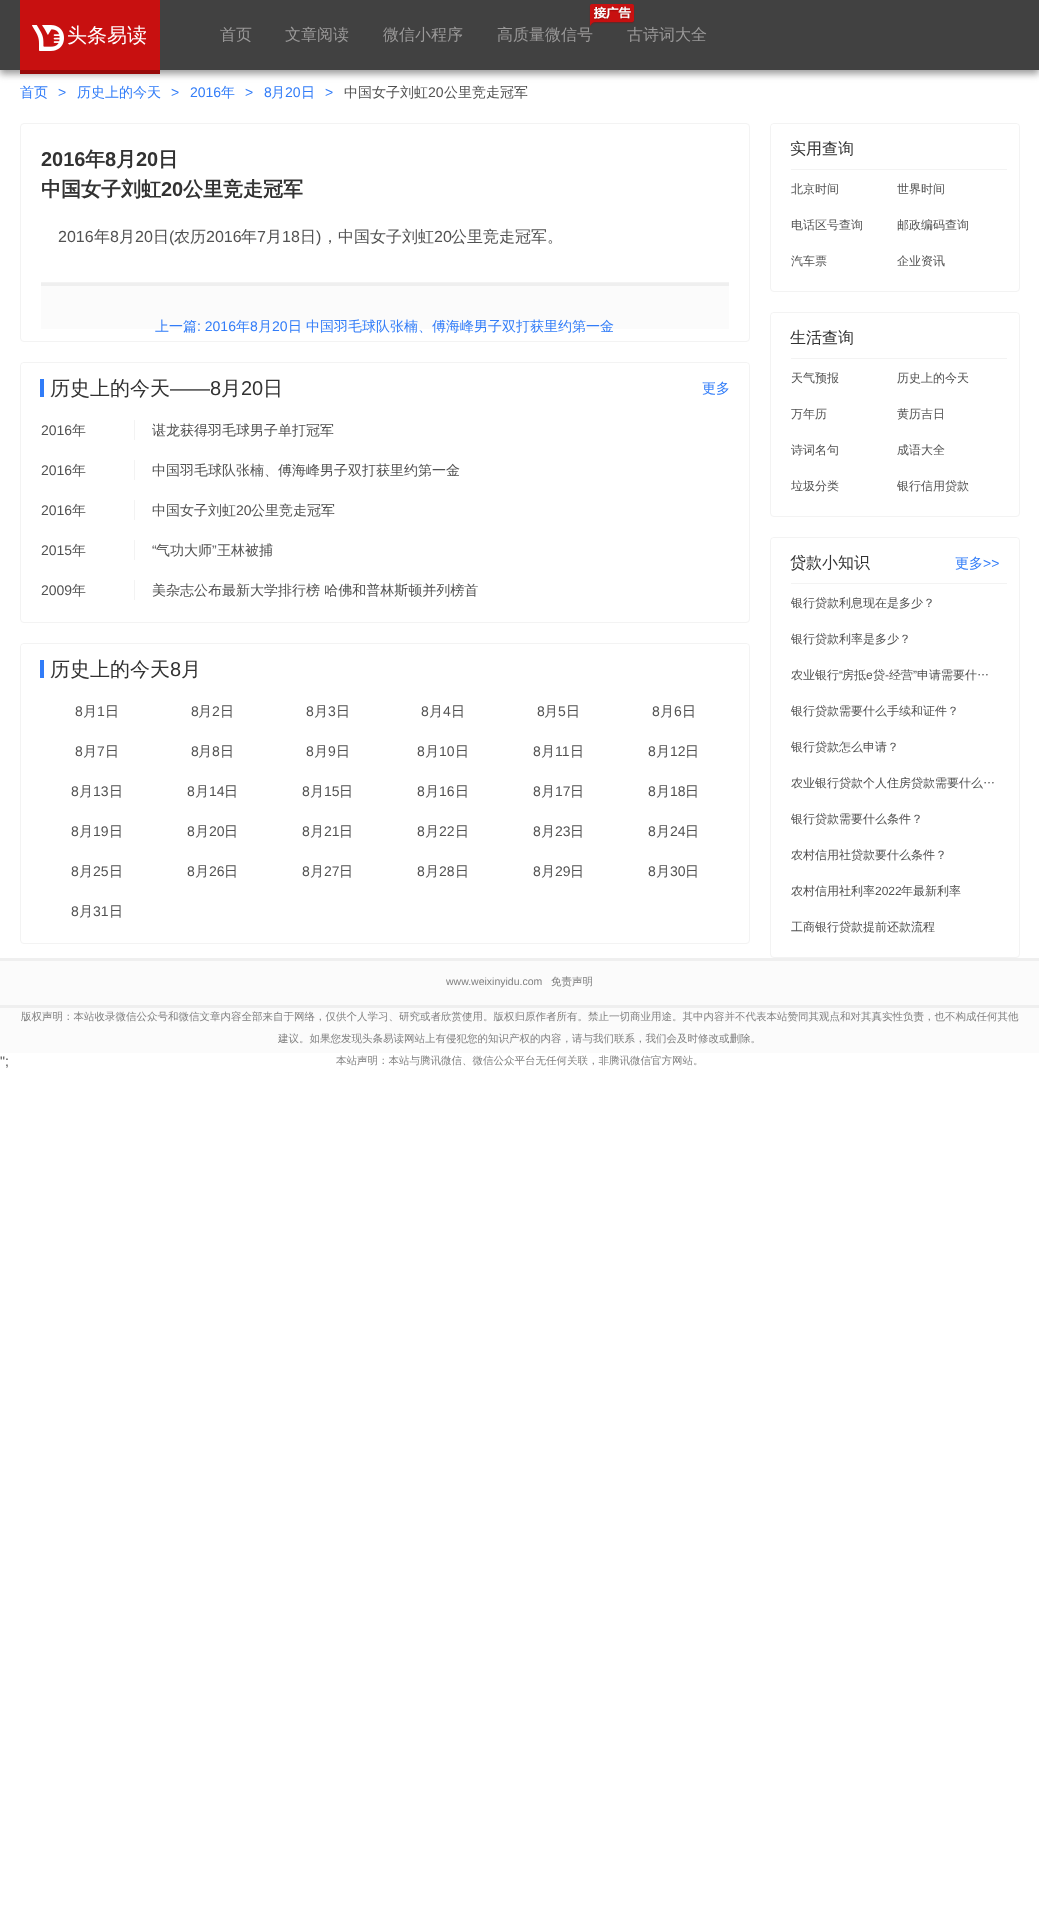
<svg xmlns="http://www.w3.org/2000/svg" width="1039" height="1928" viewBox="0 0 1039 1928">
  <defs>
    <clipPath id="clip1"><rect x="791" y="477" width="104" height="18"/></clipPath>
  </defs>
  <rect width="100%" height="100%" fill="rgb(255,255,255)"/>
  <rect x="0" y="4" width="1039" height="70" fill="rgb(156,156,156)" filter="blur(3.5px)"/>
  <rect x="0" y="0" width="1039" height="70" fill="rgb(65,65,65)"/>
  <rect x="20" y="0" width="140" height="70" fill="rgb(200,16,16)"/>
  <rect x="20" y="70" width="140" height="4" fill="rgb(153,12,12)"/>
  <image x="32" y="25" width="32" height="26" href="pic1.png"/>
  <text x="67" y="42" font-family="WenQuanYi Zen Hei" font-size="20" font-weight="500" fill="rgb(255,255,255)">头条易读</text>
  <g font-family="WenQuanYi Zen Hei" font-size="16" font-weight="500" fill="rgb(154,153,153)">
    <text x="220" y="40">首页</text>
    <text x="285" y="40">文章阅读</text>
    <text x="383" y="40">微信小程序</text>
    <text x="497" y="40">高质量微信号</text>
  </g>
  <image x="589" y="4" width="46" height="23" href="pic2.png"/>
  <text x="627" y="40" font-family="WenQuanYi Zen Hei" font-size="16" font-weight="500" fill="rgb(154,153,153)">古诗词大全</text>
  <text x="20" y="97" font-family="WenQuanYi Zen Hei" font-size="14" font-weight="500" fill="rgb(49,124,248)">首页</text>
  <text x="58" y="97" font-family="Liberation Sans" font-size="14" fill="rgb(49,124,248)">&gt;</text>
  <text x="77" y="97" font-family="WenQuanYi Zen Hei" font-size="14" font-weight="500" fill="rgb(49,124,248)">历史上的今天</text>
  <g font-family="Liberation Sans" font-size="14" fill="rgb(49,124,248)">
    <text x="171" y="97">&gt;</text>
    <text x="190" y="97">2016</text>
  </g>
  <text x="221" y="97" font-family="WenQuanYi Zen Hei" font-size="14" font-weight="500" fill="rgb(49,124,248)">年</text>
  <g font-family="Liberation Sans" font-size="14" fill="rgb(49,124,248)">
    <text x="245" y="97">&gt;</text>
    <text x="264" y="97">8</text>
  </g>
  <text x="271" y="97" font-family="WenQuanYi Zen Hei" font-size="14" font-weight="500" fill="rgb(49,124,248)">月</text>
  <text x="285" y="97" font-family="Liberation Sans" font-size="14" fill="rgb(49,124,248)">20</text>
  <text x="301" y="97" font-family="WenQuanYi Zen Hei" font-size="14" font-weight="500" fill="rgb(49,124,248)">日</text>
  <text x="325" y="97" font-family="Liberation Sans" font-size="14" fill="rgb(49,124,248)">&gt;</text>
  <text x="344" y="97" font-family="WenQuanYi Zen Hei" font-size="14" font-weight="500" fill="rgb(81,81,81)">中国女子刘虹</text>
  <text x="428" y="97" font-family="Liberation Sans" font-size="14" fill="rgb(81,81,81)">20</text>
  <text x="444" y="97" font-family="WenQuanYi Zen Hei" font-size="14" font-weight="500" fill="rgb(81,81,81)">公里竞走冠军</text>
  <rect x="20.5" y="123.5" width="729" height="218" rx="3.5" fill="none" stroke="rgb(243,243,243)"/>
  <text x="41" y="166" font-family="Liberation Sans" font-size="20" font-weight="bold" fill="rgb(50,50,50)">2016</text>
  <text x="85" y="166" font-family="WenQuanYi Zen Hei" font-size="20" font-weight="bold" fill="rgb(50,50,50)">年</text>
  <text x="105" y="166" font-family="Liberation Sans" font-size="20" font-weight="bold" fill="rgb(50,50,50)">8</text>
  <text x="116" y="166" font-family="WenQuanYi Zen Hei" font-size="20" font-weight="bold" fill="rgb(50,50,50)">月</text>
  <text x="136" y="166" font-family="Liberation Sans" font-size="20" font-weight="bold" fill="rgb(50,50,50)">20</text>
  <g font-family="WenQuanYi Zen Hei" font-size="20" font-weight="bold" fill="rgb(50,50,50)">
    <text x="158" y="166">日</text>
    <text x="41" y="196">中国女子刘虹</text>
  </g>
  <text x="161" y="196" font-family="Liberation Sans" font-size="20" font-weight="bold" fill="rgb(50,50,50)">20</text>
  <text x="183" y="196" font-family="WenQuanYi Zen Hei" font-size="20" font-weight="bold" fill="rgb(50,50,50)">公里竞走冠军</text>
  <text x="58" y="242" font-family="Liberation Sans" font-size="16" fill="rgb(81,81,81)">2016</text>
  <text x="94" y="242" font-family="WenQuanYi Zen Hei" font-size="16" font-weight="500" fill="rgb(81,81,81)">年</text>
  <text x="110" y="242" font-family="Liberation Sans" font-size="16" fill="rgb(81,81,81)">8</text>
  <text x="119" y="242" font-family="WenQuanYi Zen Hei" font-size="16" font-weight="500" fill="rgb(81,81,81)">月</text>
  <text x="135" y="242" font-family="Liberation Sans" font-size="16" fill="rgb(81,81,81)">20</text>
  <text x="153" y="242" font-family="WenQuanYi Zen Hei" font-size="16" font-weight="500" fill="rgb(81,81,81)">日</text>
  <text x="169" y="242" font-family="Liberation Sans" font-size="16" fill="rgb(81,81,81)">(</text>
  <text x="174" y="242" font-family="WenQuanYi Zen Hei" font-size="16" font-weight="500" fill="rgb(81,81,81)">农历</text>
  <text x="206" y="242" font-family="Liberation Sans" font-size="16" fill="rgb(81,81,81)">2016</text>
  <text x="241" y="242" font-family="WenQuanYi Zen Hei" font-size="16" font-weight="500" fill="rgb(81,81,81)">年</text>
  <text x="257" y="242" font-family="Liberation Sans" font-size="16" fill="rgb(81,81,81)">7</text>
  <text x="266" y="242" font-family="WenQuanYi Zen Hei" font-size="16" font-weight="500" fill="rgb(81,81,81)">月</text>
  <text x="282" y="242" font-family="Liberation Sans" font-size="16" fill="rgb(81,81,81)">18</text>
  <text x="300" y="242" font-family="WenQuanYi Zen Hei" font-size="16" font-weight="500" fill="rgb(81,81,81)">日</text>
  <text x="316" y="242" font-family="Liberation Sans" font-size="16" fill="rgb(81,81,81)">)</text>
  <text x="322" y="242" font-family="WenQuanYi Zen Hei" font-size="16" font-weight="500" fill="rgb(81,81,81)">，中国女子刘虹</text>
  <text x="434" y="242" font-family="Liberation Sans" font-size="16" fill="rgb(81,81,81)">20</text>
  <text x="451" y="242" font-family="WenQuanYi Zen Hei" font-size="16" font-weight="500" fill="rgb(81,81,81)">公里竞走冠军。</text>
  <rect x="41" y="286" width="688" height="43" fill="rgb(251,251,251)"/>
  <rect x="41" y="283" width="688" height="3" fill="rgb(239,239,239)"/>
  <rect x="41" y="282" width="688" height="1" fill="rgb(243,243,243)"/>
  <text x="155" y="331" font-family="WenQuanYi Zen Hei" font-size="14" font-weight="500" fill="rgb(49,124,248)">上一篇</text>
  <text x="197" y="331" font-family="Liberation Sans" font-size="14" fill="rgb(49,124,248)">: 2016</text>
  <text x="236" y="331" font-family="WenQuanYi Zen Hei" font-size="14" font-weight="500" fill="rgb(49,124,248)">年</text>
  <text x="250" y="331" font-family="Liberation Sans" font-size="14" fill="rgb(49,124,248)">8</text>
  <text x="258" y="331" font-family="WenQuanYi Zen Hei" font-size="14" font-weight="500" fill="rgb(49,124,248)">月</text>
  <text x="272" y="331" font-family="Liberation Sans" font-size="14" fill="rgb(49,124,248)">20</text>
  <g font-family="WenQuanYi Zen Hei" font-size="14" font-weight="500" fill="rgb(49,124,248)">
    <text x="288" y="331">日</text>
    <text x="306" y="331">中国羽毛球队张楠、傅海峰男子双打获里约第一金</text>
  </g>
  <rect x="20.5" y="362.5" width="729" height="260" rx="3.5" fill="none" stroke="rgb(243,243,243)"/>
  <path d="M24 363H746C747.5 363 749 364.5 749 366V410H21V366C21 364.5 22.5 363 24 363Z" fill="rgb(255,255,255)"/>
  <rect x="40" y="379" width="4" height="18" fill="rgb(49,124,248)"/>
  <text x="50" y="395" font-family="WenQuanYi Zen Hei" font-size="20" font-weight="500" fill="rgb(50,50,50)">历史上的今天</text>
  <text x="170" y="395" font-family="Liberation Sans" font-size="20" fill="rgb(50,50,50)">——8</text>
  <text x="221" y="395" font-family="WenQuanYi Zen Hei" font-size="20" font-weight="500" fill="rgb(50,50,50)">月</text>
  <text x="241" y="395" font-family="Liberation Sans" font-size="20" fill="rgb(50,50,50)">20</text>
  <text x="263" y="395" font-family="WenQuanYi Zen Hei" font-size="20" font-weight="500" fill="rgb(50,50,50)">日</text>
  <text x="702" y="393" font-family="WenQuanYi Zen Hei" font-size="14" font-weight="500" fill="rgb(49,124,248)">更多</text>
  <text x="41" y="435" font-family="Liberation Sans" font-size="14" fill="rgb(81,81,81)">2016</text>
  <text x="72" y="435" font-family="WenQuanYi Zen Hei" font-size="14" font-weight="500" fill="rgb(81,81,81)">年</text>
  <rect x="134" y="420" width="1" height="20" fill="rgb(243,243,243)"/>
  <text x="152" y="435" font-family="WenQuanYi Zen Hei" font-size="14" font-weight="500" fill="rgb(81,81,81)">谌龙获得羽毛球男子单打冠军</text>
  <text x="41" y="475" font-family="Liberation Sans" font-size="14" fill="rgb(81,81,81)">2016</text>
  <text x="72" y="475" font-family="WenQuanYi Zen Hei" font-size="14" font-weight="500" fill="rgb(81,81,81)">年</text>
  <rect x="134" y="460" width="1" height="20" fill="rgb(243,243,243)"/>
  <text x="152" y="475" font-family="WenQuanYi Zen Hei" font-size="14" font-weight="500" fill="rgb(81,81,81)">中国羽毛球队张楠、傅海峰男子双打获里约第一金</text>
  <text x="41" y="515" font-family="Liberation Sans" font-size="14" fill="rgb(81,81,81)">2016</text>
  <text x="72" y="515" font-family="WenQuanYi Zen Hei" font-size="14" font-weight="500" fill="rgb(81,81,81)">年</text>
  <rect x="134" y="500" width="1" height="20" fill="rgb(243,243,243)"/>
  <text x="152" y="515" font-family="WenQuanYi Zen Hei" font-size="14" font-weight="500" fill="rgb(81,81,81)">中国女子刘虹</text>
  <text x="236" y="515" font-family="Liberation Sans" font-size="14" fill="rgb(81,81,81)">20</text>
  <text x="251" y="515" font-family="WenQuanYi Zen Hei" font-size="14" font-weight="500" fill="rgb(81,81,81)">公里竞走冠军</text>
  <text x="41" y="555" font-family="Liberation Sans" font-size="14" fill="rgb(81,81,81)">2015</text>
  <text x="72" y="555" font-family="WenQuanYi Zen Hei" font-size="14" font-weight="500" fill="rgb(81,81,81)">年</text>
  <rect x="134" y="540" width="1" height="20" fill="rgb(243,243,243)"/>
  <text x="152" y="555" font-family="Liberation Sans" font-size="14" fill="rgb(81,81,81)">“</text>
  <text x="156" y="555" font-family="WenQuanYi Zen Hei" font-size="14" font-weight="500" fill="rgb(81,81,81)">气功大师</text>
  <text x="212" y="555" font-family="Liberation Sans" font-size="14" fill="rgb(81,81,81)">”</text>
  <text x="217" y="555" font-family="WenQuanYi Zen Hei" font-size="14" font-weight="500" fill="rgb(81,81,81)">王林被捕</text>
  <text x="41" y="595" font-family="Liberation Sans" font-size="14" fill="rgb(81,81,81)">2009</text>
  <text x="72" y="595" font-family="WenQuanYi Zen Hei" font-size="14" font-weight="500" fill="rgb(81,81,81)">年</text>
  <rect x="134" y="580" width="1" height="20" fill="rgb(243,243,243)"/>
  <text x="152" y="595" font-family="WenQuanYi Zen Hei" font-size="14" font-weight="500" fill="rgb(81,81,81)">美杂志公布最新大学排行榜 哈佛和普林斯顿并列榜首</text>
  <rect x="20.5" y="643.5" width="729" height="300" rx="3.5" fill="none" stroke="rgb(243,243,243)"/>
  <path d="M24 644H746C747.5 644 749 645.5 749 647V691H21V647C21 645.5 22.5 644 24 644Z" fill="rgb(255,255,255)"/>
  <rect x="40" y="660" width="4" height="18" fill="rgb(49,124,248)"/>
  <text x="50" y="676" font-family="WenQuanYi Zen Hei" font-size="20" font-weight="500" fill="rgb(50,50,50)">历史上的今天</text>
  <text x="170" y="676" font-family="Liberation Sans" font-size="20" fill="rgb(50,50,50)">8</text>
  <text x="181" y="676" font-family="WenQuanYi Zen Hei" font-size="20" font-weight="500" fill="rgb(50,50,50)">月</text>
  <text x="75" y="716" font-family="Liberation Sans" font-size="14" fill="rgb(81,81,81)">8</text>
  <text x="83" y="716" font-family="WenQuanYi Zen Hei" font-size="14" font-weight="500" fill="rgb(81,81,81)">月</text>
  <text x="97" y="716" font-family="Liberation Sans" font-size="14" fill="rgb(81,81,81)">1</text>
  <text x="105" y="716" font-family="WenQuanYi Zen Hei" font-size="14" font-weight="500" fill="rgb(81,81,81)">日</text>
  <text x="191" y="716" font-family="Liberation Sans" font-size="14" fill="rgb(81,81,81)">8</text>
  <text x="198" y="716" font-family="WenQuanYi Zen Hei" font-size="14" font-weight="500" fill="rgb(81,81,81)">月</text>
  <text x="212" y="716" font-family="Liberation Sans" font-size="14" fill="rgb(81,81,81)">2</text>
  <text x="220" y="716" font-family="WenQuanYi Zen Hei" font-size="14" font-weight="500" fill="rgb(81,81,81)">日</text>
  <text x="306" y="716" font-family="Liberation Sans" font-size="14" fill="rgb(81,81,81)">8</text>
  <text x="314" y="716" font-family="WenQuanYi Zen Hei" font-size="14" font-weight="500" fill="rgb(81,81,81)">月</text>
  <text x="328" y="716" font-family="Liberation Sans" font-size="14" fill="rgb(81,81,81)">3</text>
  <text x="336" y="716" font-family="WenQuanYi Zen Hei" font-size="14" font-weight="500" fill="rgb(81,81,81)">日</text>
  <text x="421" y="716" font-family="Liberation Sans" font-size="14" fill="rgb(81,81,81)">8</text>
  <text x="429" y="716" font-family="WenQuanYi Zen Hei" font-size="14" font-weight="500" fill="rgb(81,81,81)">月</text>
  <text x="443" y="716" font-family="Liberation Sans" font-size="14" fill="rgb(81,81,81)">4</text>
  <text x="451" y="716" font-family="WenQuanYi Zen Hei" font-size="14" font-weight="500" fill="rgb(81,81,81)">日</text>
  <text x="537" y="716" font-family="Liberation Sans" font-size="14" fill="rgb(81,81,81)">8</text>
  <text x="544" y="716" font-family="WenQuanYi Zen Hei" font-size="14" font-weight="500" fill="rgb(81,81,81)">月</text>
  <text x="558" y="716" font-family="Liberation Sans" font-size="14" fill="rgb(81,81,81)">5</text>
  <text x="566" y="716" font-family="WenQuanYi Zen Hei" font-size="14" font-weight="500" fill="rgb(81,81,81)">日</text>
  <text x="652" y="716" font-family="Liberation Sans" font-size="14" fill="rgb(81,81,81)">8</text>
  <text x="660" y="716" font-family="WenQuanYi Zen Hei" font-size="14" font-weight="500" fill="rgb(81,81,81)">月</text>
  <text x="674" y="716" font-family="Liberation Sans" font-size="14" fill="rgb(81,81,81)">6</text>
  <text x="682" y="716" font-family="WenQuanYi Zen Hei" font-size="14" font-weight="500" fill="rgb(81,81,81)">日</text>
  <text x="75" y="756" font-family="Liberation Sans" font-size="14" fill="rgb(81,81,81)">8</text>
  <text x="83" y="756" font-family="WenQuanYi Zen Hei" font-size="14" font-weight="500" fill="rgb(81,81,81)">月</text>
  <text x="97" y="756" font-family="Liberation Sans" font-size="14" fill="rgb(81,81,81)">7</text>
  <text x="105" y="756" font-family="WenQuanYi Zen Hei" font-size="14" font-weight="500" fill="rgb(81,81,81)">日</text>
  <text x="191" y="756" font-family="Liberation Sans" font-size="14" fill="rgb(81,81,81)">8</text>
  <text x="198" y="756" font-family="WenQuanYi Zen Hei" font-size="14" font-weight="500" fill="rgb(81,81,81)">月</text>
  <text x="212" y="756" font-family="Liberation Sans" font-size="14" fill="rgb(81,81,81)">8</text>
  <text x="220" y="756" font-family="WenQuanYi Zen Hei" font-size="14" font-weight="500" fill="rgb(81,81,81)">日</text>
  <text x="306" y="756" font-family="Liberation Sans" font-size="14" fill="rgb(81,81,81)">8</text>
  <text x="314" y="756" font-family="WenQuanYi Zen Hei" font-size="14" font-weight="500" fill="rgb(81,81,81)">月</text>
  <text x="328" y="756" font-family="Liberation Sans" font-size="14" fill="rgb(81,81,81)">9</text>
  <text x="336" y="756" font-family="WenQuanYi Zen Hei" font-size="14" font-weight="500" fill="rgb(81,81,81)">日</text>
  <text x="417" y="756" font-family="Liberation Sans" font-size="14" fill="rgb(81,81,81)">8</text>
  <text x="425" y="756" font-family="WenQuanYi Zen Hei" font-size="14" font-weight="500" fill="rgb(81,81,81)">月</text>
  <text x="439" y="756" font-family="Liberation Sans" font-size="14" fill="rgb(81,81,81)">10</text>
  <text x="455" y="756" font-family="WenQuanYi Zen Hei" font-size="14" font-weight="500" fill="rgb(81,81,81)">日</text>
  <text x="533" y="756" font-family="Liberation Sans" font-size="14" fill="rgb(81,81,81)">8</text>
  <text x="541" y="756" font-family="WenQuanYi Zen Hei" font-size="14" font-weight="500" fill="rgb(81,81,81)">月</text>
  <text x="555" y="756" font-family="Liberation Sans" font-size="14" fill="rgb(81,81,81)">11</text>
  <text x="570" y="756" font-family="WenQuanYi Zen Hei" font-size="14" font-weight="500" fill="rgb(81,81,81)">日</text>
  <text x="648" y="756" font-family="Liberation Sans" font-size="14" fill="rgb(81,81,81)">8</text>
  <text x="656" y="756" font-family="WenQuanYi Zen Hei" font-size="14" font-weight="500" fill="rgb(81,81,81)">月</text>
  <text x="670" y="756" font-family="Liberation Sans" font-size="14" fill="rgb(81,81,81)">12</text>
  <text x="685" y="756" font-family="WenQuanYi Zen Hei" font-size="14" font-weight="500" fill="rgb(81,81,81)">日</text>
  <text x="71" y="796" font-family="Liberation Sans" font-size="14" fill="rgb(81,81,81)">8</text>
  <text x="79" y="796" font-family="WenQuanYi Zen Hei" font-size="14" font-weight="500" fill="rgb(81,81,81)">月</text>
  <text x="93" y="796" font-family="Liberation Sans" font-size="14" fill="rgb(81,81,81)">13</text>
  <text x="109" y="796" font-family="WenQuanYi Zen Hei" font-size="14" font-weight="500" fill="rgb(81,81,81)">日</text>
  <text x="187" y="796" font-family="Liberation Sans" font-size="14" fill="rgb(81,81,81)">8</text>
  <text x="195" y="796" font-family="WenQuanYi Zen Hei" font-size="14" font-weight="500" fill="rgb(81,81,81)">月</text>
  <text x="209" y="796" font-family="Liberation Sans" font-size="14" fill="rgb(81,81,81)">14</text>
  <text x="224" y="796" font-family="WenQuanYi Zen Hei" font-size="14" font-weight="500" fill="rgb(81,81,81)">日</text>
  <text x="302" y="796" font-family="Liberation Sans" font-size="14" fill="rgb(81,81,81)">8</text>
  <text x="310" y="796" font-family="WenQuanYi Zen Hei" font-size="14" font-weight="500" fill="rgb(81,81,81)">月</text>
  <text x="324" y="796" font-family="Liberation Sans" font-size="14" fill="rgb(81,81,81)">15</text>
  <text x="339" y="796" font-family="WenQuanYi Zen Hei" font-size="14" font-weight="500" fill="rgb(81,81,81)">日</text>
  <text x="417" y="796" font-family="Liberation Sans" font-size="14" fill="rgb(81,81,81)">8</text>
  <text x="425" y="796" font-family="WenQuanYi Zen Hei" font-size="14" font-weight="500" fill="rgb(81,81,81)">月</text>
  <text x="439" y="796" font-family="Liberation Sans" font-size="14" fill="rgb(81,81,81)">16</text>
  <text x="455" y="796" font-family="WenQuanYi Zen Hei" font-size="14" font-weight="500" fill="rgb(81,81,81)">日</text>
  <text x="533" y="796" font-family="Liberation Sans" font-size="14" fill="rgb(81,81,81)">8</text>
  <text x="541" y="796" font-family="WenQuanYi Zen Hei" font-size="14" font-weight="500" fill="rgb(81,81,81)">月</text>
  <text x="555" y="796" font-family="Liberation Sans" font-size="14" fill="rgb(81,81,81)">17</text>
  <text x="570" y="796" font-family="WenQuanYi Zen Hei" font-size="14" font-weight="500" fill="rgb(81,81,81)">日</text>
  <text x="648" y="796" font-family="Liberation Sans" font-size="14" fill="rgb(81,81,81)">8</text>
  <text x="656" y="796" font-family="WenQuanYi Zen Hei" font-size="14" font-weight="500" fill="rgb(81,81,81)">月</text>
  <text x="670" y="796" font-family="Liberation Sans" font-size="14" fill="rgb(81,81,81)">18</text>
  <text x="685" y="796" font-family="WenQuanYi Zen Hei" font-size="14" font-weight="500" fill="rgb(81,81,81)">日</text>
  <text x="71" y="836" font-family="Liberation Sans" font-size="14" fill="rgb(81,81,81)">8</text>
  <text x="79" y="836" font-family="WenQuanYi Zen Hei" font-size="14" font-weight="500" fill="rgb(81,81,81)">月</text>
  <text x="93" y="836" font-family="Liberation Sans" font-size="14" fill="rgb(81,81,81)">19</text>
  <text x="109" y="836" font-family="WenQuanYi Zen Hei" font-size="14" font-weight="500" fill="rgb(81,81,81)">日</text>
  <text x="187" y="836" font-family="Liberation Sans" font-size="14" fill="rgb(81,81,81)">8</text>
  <text x="195" y="836" font-family="WenQuanYi Zen Hei" font-size="14" font-weight="500" fill="rgb(81,81,81)">月</text>
  <text x="209" y="836" font-family="Liberation Sans" font-size="14" fill="rgb(81,81,81)">20</text>
  <text x="224" y="836" font-family="WenQuanYi Zen Hei" font-size="14" font-weight="500" fill="rgb(81,81,81)">日</text>
  <text x="302" y="836" font-family="Liberation Sans" font-size="14" fill="rgb(81,81,81)">8</text>
  <text x="310" y="836" font-family="WenQuanYi Zen Hei" font-size="14" font-weight="500" fill="rgb(81,81,81)">月</text>
  <text x="324" y="836" font-family="Liberation Sans" font-size="14" fill="rgb(81,81,81)">21</text>
  <text x="339" y="836" font-family="WenQuanYi Zen Hei" font-size="14" font-weight="500" fill="rgb(81,81,81)">日</text>
  <text x="417" y="836" font-family="Liberation Sans" font-size="14" fill="rgb(81,81,81)">8</text>
  <text x="425" y="836" font-family="WenQuanYi Zen Hei" font-size="14" font-weight="500" fill="rgb(81,81,81)">月</text>
  <text x="439" y="836" font-family="Liberation Sans" font-size="14" fill="rgb(81,81,81)">22</text>
  <text x="455" y="836" font-family="WenQuanYi Zen Hei" font-size="14" font-weight="500" fill="rgb(81,81,81)">日</text>
  <text x="533" y="836" font-family="Liberation Sans" font-size="14" fill="rgb(81,81,81)">8</text>
  <text x="541" y="836" font-family="WenQuanYi Zen Hei" font-size="14" font-weight="500" fill="rgb(81,81,81)">月</text>
  <text x="555" y="836" font-family="Liberation Sans" font-size="14" fill="rgb(81,81,81)">23</text>
  <text x="570" y="836" font-family="WenQuanYi Zen Hei" font-size="14" font-weight="500" fill="rgb(81,81,81)">日</text>
  <text x="648" y="836" font-family="Liberation Sans" font-size="14" fill="rgb(81,81,81)">8</text>
  <text x="656" y="836" font-family="WenQuanYi Zen Hei" font-size="14" font-weight="500" fill="rgb(81,81,81)">月</text>
  <text x="670" y="836" font-family="Liberation Sans" font-size="14" fill="rgb(81,81,81)">24</text>
  <text x="685" y="836" font-family="WenQuanYi Zen Hei" font-size="14" font-weight="500" fill="rgb(81,81,81)">日</text>
  <text x="71" y="876" font-family="Liberation Sans" font-size="14" fill="rgb(81,81,81)">8</text>
  <text x="79" y="876" font-family="WenQuanYi Zen Hei" font-size="14" font-weight="500" fill="rgb(81,81,81)">月</text>
  <text x="93" y="876" font-family="Liberation Sans" font-size="14" fill="rgb(81,81,81)">25</text>
  <text x="109" y="876" font-family="WenQuanYi Zen Hei" font-size="14" font-weight="500" fill="rgb(81,81,81)">日</text>
  <text x="187" y="876" font-family="Liberation Sans" font-size="14" fill="rgb(81,81,81)">8</text>
  <text x="195" y="876" font-family="WenQuanYi Zen Hei" font-size="14" font-weight="500" fill="rgb(81,81,81)">月</text>
  <text x="209" y="876" font-family="Liberation Sans" font-size="14" fill="rgb(81,81,81)">26</text>
  <text x="224" y="876" font-family="WenQuanYi Zen Hei" font-size="14" font-weight="500" fill="rgb(81,81,81)">日</text>
  <text x="302" y="876" font-family="Liberation Sans" font-size="14" fill="rgb(81,81,81)">8</text>
  <text x="310" y="876" font-family="WenQuanYi Zen Hei" font-size="14" font-weight="500" fill="rgb(81,81,81)">月</text>
  <text x="324" y="876" font-family="Liberation Sans" font-size="14" fill="rgb(81,81,81)">27</text>
  <text x="339" y="876" font-family="WenQuanYi Zen Hei" font-size="14" font-weight="500" fill="rgb(81,81,81)">日</text>
  <text x="417" y="876" font-family="Liberation Sans" font-size="14" fill="rgb(81,81,81)">8</text>
  <text x="425" y="876" font-family="WenQuanYi Zen Hei" font-size="14" font-weight="500" fill="rgb(81,81,81)">月</text>
  <text x="439" y="876" font-family="Liberation Sans" font-size="14" fill="rgb(81,81,81)">28</text>
  <text x="455" y="876" font-family="WenQuanYi Zen Hei" font-size="14" font-weight="500" fill="rgb(81,81,81)">日</text>
  <text x="533" y="876" font-family="Liberation Sans" font-size="14" fill="rgb(81,81,81)">8</text>
  <text x="541" y="876" font-family="WenQuanYi Zen Hei" font-size="14" font-weight="500" fill="rgb(81,81,81)">月</text>
  <text x="555" y="876" font-family="Liberation Sans" font-size="14" fill="rgb(81,81,81)">29</text>
  <text x="570" y="876" font-family="WenQuanYi Zen Hei" font-size="14" font-weight="500" fill="rgb(81,81,81)">日</text>
  <text x="648" y="876" font-family="Liberation Sans" font-size="14" fill="rgb(81,81,81)">8</text>
  <text x="656" y="876" font-family="WenQuanYi Zen Hei" font-size="14" font-weight="500" fill="rgb(81,81,81)">月</text>
  <text x="670" y="876" font-family="Liberation Sans" font-size="14" fill="rgb(81,81,81)">30</text>
  <text x="685" y="876" font-family="WenQuanYi Zen Hei" font-size="14" font-weight="500" fill="rgb(81,81,81)">日</text>
  <text x="71" y="916" font-family="Liberation Sans" font-size="14" fill="rgb(81,81,81)">8</text>
  <text x="79" y="916" font-family="WenQuanYi Zen Hei" font-size="14" font-weight="500" fill="rgb(81,81,81)">月</text>
  <text x="93" y="916" font-family="Liberation Sans" font-size="14" fill="rgb(81,81,81)">31</text>
  <text x="109" y="916" font-family="WenQuanYi Zen Hei" font-size="14" font-weight="500" fill="rgb(81,81,81)">日</text>
  <rect x="770.5" y="123.5" width="249" height="168" rx="3.5" fill="none" stroke="rgb(243,243,243)"/>
  <path d="M774 124H1016C1017.5 124 1019 125.5 1019 127V171H771V127C771 125.5 772.5 124 774 124Z" fill="rgb(255,255,255)"/>
  <text x="790" y="154" font-family="WenQuanYi Zen Hei" font-size="16" font-weight="500" fill="rgb(50,50,50)">实用查询</text>
  <rect x="791" y="169" width="216" height="1" fill="rgb(243,243,243)"/>
  <g font-family="WenQuanYi Zen Hei" font-size="12" font-weight="500" fill="rgb(81,81,81)">
    <text x="791" y="193">北京时间</text>
    <text x="897" y="193">世界时间</text>
    <text x="791" y="229">电话区号查询</text>
    <text x="897" y="229">邮政编码查询</text>
    <text x="791" y="265">汽车票</text>
    <text x="897" y="265">企业资讯</text>
  </g>
  <rect x="770.5" y="312.5" width="249" height="204" rx="3.5" fill="none" stroke="rgb(243,243,243)"/>
  <path d="M774 313H1016C1017.5 313 1019 314.5 1019 316V360H771V316C771 314.5 772.5 313 774 313Z" fill="rgb(255,255,255)"/>
  <text x="790" y="343" font-family="WenQuanYi Zen Hei" font-size="16" font-weight="500" fill="rgb(50,50,50)">生活查询</text>
  <rect x="791" y="358" width="216" height="1" fill="rgb(243,243,243)"/>
  <g font-family="WenQuanYi Zen Hei" font-size="12" font-weight="500" fill="rgb(81,81,81)">
    <text x="791" y="382">天气预报</text>
    <text x="897" y="382">历史上的今天</text>
    <text x="791" y="418">万年历</text>
    <text x="897" y="418">黄历吉日</text>
    <text x="791" y="454">诗词名句</text>
    <text x="897" y="454">成语大全</text>
  </g>
  <g clip-path="url(#clip1)">
    <text x="791" y="490" font-family="WenQuanYi Zen Hei" font-size="12" font-weight="500" fill="rgb(81,81,81)">垃圾分类</text>
  </g>
  <text x="897" y="490" font-family="WenQuanYi Zen Hei" font-size="12" font-weight="500" fill="rgb(81,81,81)">银行信用贷款</text>
  <rect x="770.5" y="537.5" width="249" height="420" rx="3.5" fill="none" stroke="rgb(243,243,243)"/>
  <path d="M774 538H1016C1017.5 538 1019 539.5 1019 541V585H771V541C771 539.5 772.5 538 774 538Z" fill="rgb(255,255,255)"/>
  <text x="790" y="568" font-family="WenQuanYi Zen Hei" font-size="16" font-weight="500" fill="rgb(50,50,50)">贷款小知识</text>
  <text x="955" y="568" font-family="WenQuanYi Zen Hei" font-size="14" font-weight="500" fill="rgb(49,124,248)">更多</text>
  <text x="983" y="568" font-family="Liberation Sans" font-size="14" fill="rgb(49,124,248)">&gt;&gt;</text>
  <rect x="791" y="583" width="216" height="1" fill="rgb(243,243,243)"/>
  <g font-family="WenQuanYi Zen Hei" font-size="12" font-weight="500" fill="rgb(81,81,81)">
    <text x="791" y="607">银行贷款利息现在是多少？</text>
    <text x="791" y="643">银行贷款利率是多少？</text>
    <text x="791" y="679">农业银行</text>
  </g>
  <text x="839" y="679" font-family="Liberation Sans" font-size="12" fill="rgb(81,81,81)">“</text>
  <text x="842" y="679" font-family="WenQuanYi Zen Hei" font-size="12" font-weight="500" fill="rgb(81,81,81)">房抵</text>
  <text x="866" y="679" font-family="Liberation Sans" font-size="12" fill="rgb(81,81,81)">e</text>
  <text x="873" y="679" font-family="WenQuanYi Zen Hei" font-size="12" font-weight="500" fill="rgb(81,81,81)">贷</text>
  <text x="885" y="679" font-family="Liberation Sans" font-size="12" fill="rgb(81,81,81)">-</text>
  <text x="889" y="679" font-family="WenQuanYi Zen Hei" font-size="12" font-weight="500" fill="rgb(81,81,81)">经营</text>
  <text x="913" y="679" font-family="Liberation Sans" font-size="12" fill="rgb(81,81,81)">”</text>
  <g font-family="WenQuanYi Zen Hei" font-size="12" font-weight="500" fill="rgb(81,81,81)">
    <text x="917" y="679">申请需要什…</text>
    <text x="791" y="715">银行贷款需要什么手续和证件？</text>
    <text x="791" y="751">银行贷款怎么申请？</text>
    <text x="791" y="787">农业银行贷款个人住房贷款需要什么…</text>
    <text x="791" y="823">银行贷款需要什么条件？</text>
    <text x="791" y="859">农村信用社贷款要什么条件？</text>
    <text x="791" y="895">农村信用社利率</text>
  </g>
  <text x="875" y="895" font-family="Liberation Sans" font-size="12" fill="rgb(81,81,81)">2022</text>
  <g font-family="WenQuanYi Zen Hei" font-size="12" font-weight="500" fill="rgb(81,81,81)">
    <text x="901" y="895">年最新利率</text>
    <text x="791" y="931">工商银行贷款提前还款流程</text>
  </g>
  <rect x="0" y="961" width="1039" height="44" fill="rgb(251,251,251)"/>
  <rect x="0" y="958" width="1039" height="3" fill="rgb(239,239,239)"/>
  <text x="446" y="985" font-family="Liberation Sans" font-size="10.5" fill="rgb(128,128,128)">www.weixinyidu.com</text>
  <text x="551" y="985" font-family="WenQuanYi Zen Hei" font-size="10.5" font-weight="500" fill="rgb(128,128,128)">免责声明</text>
  <text x="0" y="1066" font-family="Liberation Sans" font-size="14" fill="rgb(81,81,81)">";</text>
  <rect x="0" y="1008" width="1039" height="45" fill="rgb(251,251,251)"/>
  <rect x="0" y="1005" width="1039" height="3" fill="rgb(239,239,239)"/>
  <g font-family="WenQuanYi Zen Hei" font-size="10.5" font-weight="500" fill="rgb(128,128,128)">
    <text x="21" y="1020">版权声明：本站收录微信公众号和微信文章内容全部来自于网络，仅供个人学习、研究或者欣赏使用。版权归原作者所有。禁止一切商业用途。其中内容并不代表本站赞同其观点和对其真实性负责，也不构成任何其他</text>
    <text x="278" y="1042">建议。如果您发现头条易读网站上有侵犯您的知识产权的内容，请与我们联系，我们会及时修改或删除。</text>
    <text x="336" y="1064">本站声明：本站与腾讯微信、微信公众平台无任何关联，非腾讯微信官方网站。</text>
  </g>
</svg>
